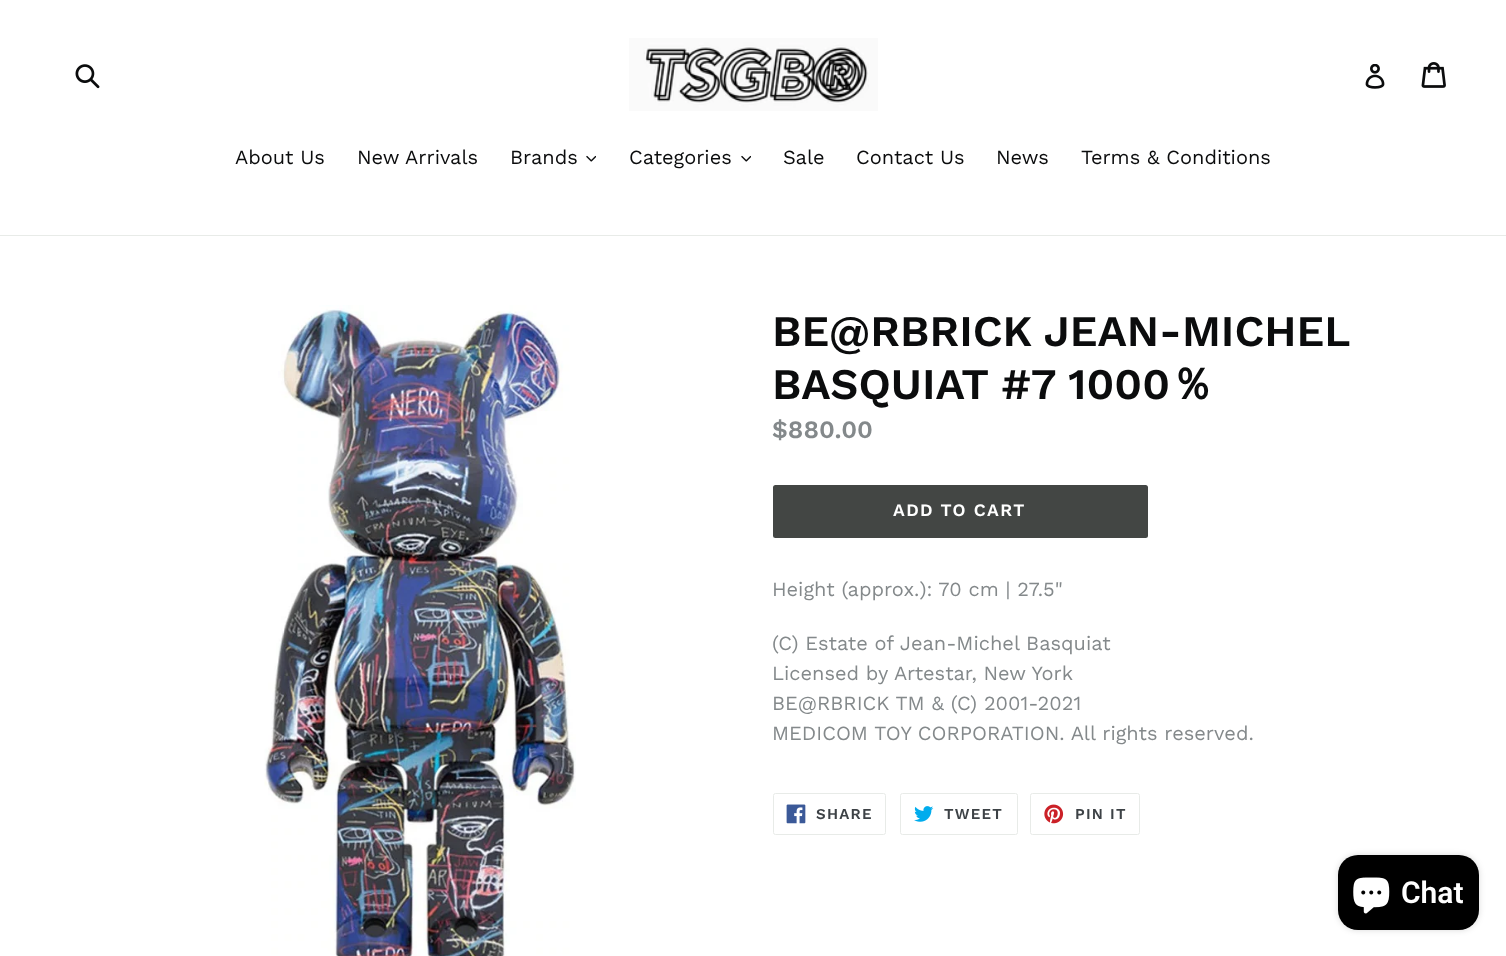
<svg xmlns="http://www.w3.org/2000/svg" width="1506" height="956" viewBox="0 0 1506 956">
  <rect width="100%" height="100%" fill="rgb(255,255,255)"/>
  <image x="75" y="64" width="25" height="25" href="pic1.png"/>
  <image x="629" y="38" width="249" height="73" href="pic2.png"/>
  <image x="1365" y="64" width="20" height="25" href="pic3.png"/>
  <image x="1421" y="62" width="25" height="26" href="pic4.png"/>
  <rect x="0" y="235" width="1506" height="1" fill="rgb(232,235,232)"/>
  <g font-family="Work Sans" font-size="20" fill="rgb(11,12,13)">
    <text x="235" y="164">About Us</text>
    <text x="357" y="164">New Arrivals</text>
    <text x="510" y="164">Brands</text>
  </g>
  <image x="586" y="155" width="10" height="7" href="pic5.png"/>
  <text x="629" y="164" font-family="Work Sans" font-size="20" fill="rgb(11,12,13)">Categories</text>
  <image x="741" y="155" width="10" height="7" href="pic5.png"/>
  <g font-family="Work Sans" font-size="20" fill="rgb(11,12,13)">
    <text x="783" y="164">Sale</text>
    <text x="856" y="164">Contact Us</text>
    <text x="996" y="164">News</text>
    <text x="1081" y="164">Terms &amp; Conditions</text>
  </g>
  <image x="264" y="305" width="312" height="651" href="pic6.png"/>
  <g font-family="Work Sans" font-size="43.75" font-weight="600" fill="rgb(11,12,13)">
    <text>
      <tspan x="772" y="346" word-spacing="-1">BE@RBRICK JEAN-MICHEL</tspan>
      <tspan x="772" y="399">BASQUIAT #7 1000</tspan>
    </text>
  </g>
  <text x="1170" y="399" font-family="WenQuanYi Zen Hei" font-size="43.75" font-weight="bold" fill="rgb(11,12,13)">％</text>
  <text x="772" y="438" font-family="Work Sans" font-size="25" font-weight="600" fill="rgb(132,137,139)">$880.00</text>
  <rect x="773" y="485" width="375" height="53" rx="2.5" fill="rgb(67,70,68)"/>
  <text x="893" y="516" font-family="Work Sans" font-size="17.5" font-weight="600" letter-spacing="1.4" fill="rgb(255,255,255)">ADD TO CART</text>
  <g font-family="Work Sans" font-size="20" fill="rgb(132,137,139)">
    <text x="772" y="596">Height (approx.): 70 cm | 27.5"</text>
    <text>
      <tspan x="772" y="650">(C) Estate of Jean-Michel Basquiat</tspan>
      <tspan x="772" y="680">Licensed by Artestar, New York</tspan>
      <tspan x="772" y="710">BE@RBRICK TM &amp; (C) 2001-2021</tspan>
      <tspan x="772" y="740">MEDICOM TOY CORPORATION. All rights reserved.</tspan>
    </text>
  </g>
  <rect x="773.5" y="793.5" width="112" height="41" rx="2" fill="none" stroke="rgb(232,235,232)"/>
  <image x="786" y="804" width="20" height="20" href="pic7.png"/>
  <text x="816" y="819" font-family="Work Sans" font-size="15" font-weight="600" letter-spacing="1.25" fill="rgb(61,66,70)">SHARE</text>
  <rect x="900.5" y="793.5" width="117" height="41" rx="2" fill="none" stroke="rgb(232,235,232)"/>
  <image x="914" y="806" width="20" height="16" href="pic8.png"/>
  <text x="944" y="819" font-family="Work Sans" font-size="15" font-weight="600" letter-spacing="1.25" fill="rgb(61,66,70)">TWEET</text>
  <rect x="1030.5" y="793.5" width="109" height="41" rx="2" fill="none" stroke="rgb(232,235,232)"/>
  <image x="1044" y="804" width="20" height="20" href="pic9.png"/>
  <text x="1075" y="819" font-family="Work Sans" font-size="15" font-weight="600" letter-spacing="1.25" fill="rgb(61,66,70)">PIN IT</text>
  <rect x="1338" y="855" width="141" height="75" rx="20" fill="rgba(0,0,0,0.15)" filter="blur(3px)"/>
  <rect x="1338" y="855" width="141" height="75" rx="20" fill="rgb(0,0,0)"/>
  <image x="1353" y="877" width="37" height="37" href="pic10.png"/>
  <text x="1401" y="903" font-family="Roboto" font-size="30" font-weight="600" fill="rgb(255,255,255)">Chat</text>
</svg>
